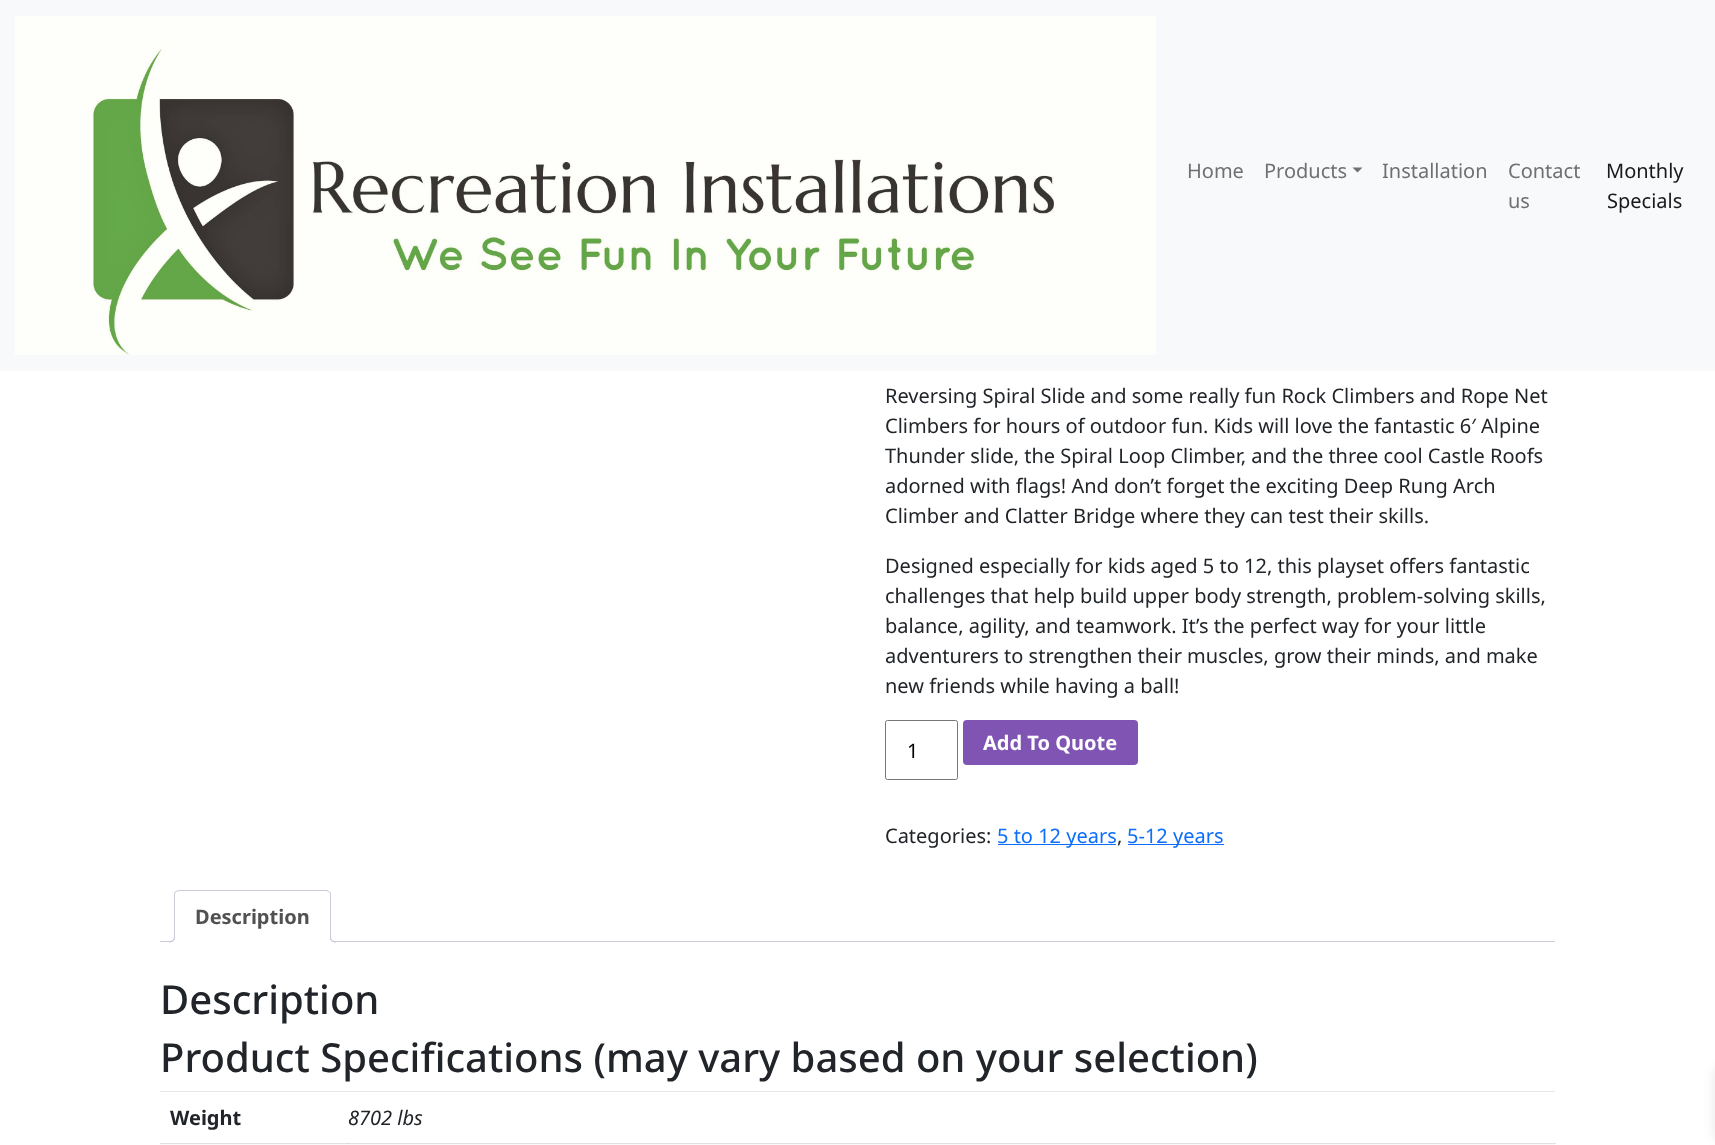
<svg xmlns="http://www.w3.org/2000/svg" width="1715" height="1145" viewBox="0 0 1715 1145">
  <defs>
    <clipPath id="clip1"><rect x="160" y="890" width="1395" height="53"/></clipPath>
  </defs>
  <rect width="100%" height="100%" fill="rgb(255,255,255)"/>
  <rect x="1555" y="1143" width="1" height="1" fill="rgb(230,230,230)"/>
  <rect x="0" y="0" width="1715" height="371" fill="rgb(248,249,250)"/>
  <image x="15" y="16" width="1141" height="339" href="pic1.png"/>
  <g font-family="Noto Sans" font-size="20" fill="rgb(112,112,113)">
    <text x="1187" y="178">Home</text>
    <text x="1264" y="178">Products</text>
  </g>
  <path d="M1352.5 167.5H1362.5L1357.5 172.5Z" fill="rgb(112,112,113)"/>
  <g font-family="Noto Sans" font-size="20" fill="rgb(112,112,113)">
    <text x="1382" y="178">Installation</text>
    <text>
      <tspan x="1508" y="178">Contact</tspan>
      <tspan x="1508" y="208">us</tspan>
    </text>
  </g>
  <g font-family="Noto Sans" font-size="20" fill="rgb(25,25,25)">
    <text x="1606" y="178">Monthly</text>
    <text x="1607" y="208">Specials</text>
  </g>
  <g font-family="Noto Sans" font-size="20" fill="rgb(33,37,41)">
    <text>
      <tspan x="885" y="403">Reversing Spiral Slide and some really fun Rock Climbers and Rope Net</tspan>
      <tspan x="885" y="433">Climbers for hours of outdoor fun. Kids will love the fantastic 6′ Alpine</tspan>
      <tspan x="885" y="463">Thunder slide, the Spiral Loop Climber, and the three cool Castle Roofs</tspan>
      <tspan x="885" y="493">adorned with flags! And don’t forget the exciting Deep Rung Arch</tspan>
      <tspan x="885" y="523">Climber and Clatter Bridge where they can test their skills.</tspan>
    </text>
    <text>
      <tspan x="885" y="573">Designed especially for kids aged 5 to 12, this playset offers fantastic</tspan>
      <tspan x="885" y="603">challenges that help build upper body strength, problem-solving skills,</tspan>
      <tspan x="885" y="633">balance, agility, and teamwork. It’s the perfect way for your little</tspan>
      <tspan x="885" y="663">adventurers to strengthen their muscles, grow their minds, and make</tspan>
      <tspan x="885" y="693">new friends while having a ball!</tspan>
    </text>
  </g>
  <rect x="885.5" y="720.5" width="72" height="59" rx="2" fill="none" stroke="rgb(118,118,118)"/>
  <text x="907" y="758" font-family="Noto Sans" font-size="20" fill="rgb(0,0,0)">1</text>
  <rect x="963" y="720" width="175" height="45" rx="4" fill="rgb(127,84,179)"/>
  <text x="983" y="750" font-family="Noto Sans" font-size="20" font-weight="bold" fill="rgb(255,255,255)">Add To Quote</text>
  <text x="885" y="843" font-family="Noto Sans" font-size="20" fill="rgb(33,37,41)">Categories:</text>
  <rect x="998" y="844" width="118" height="1" fill="rgb(13,110,253)"/>
  <text x="997" y="843" font-family="Noto Sans" font-size="20" fill="rgb(13,110,253)">5 to 12 years</text>
  <text x="1117" y="843" font-family="Noto Sans" font-size="20" fill="rgb(33,37,41)">,</text>
  <rect x="1128" y="844" width="96" height="1" fill="rgb(13,110,253)"/>
  <text x="1127" y="843" font-family="Noto Sans" font-size="20" fill="rgb(13,110,253)">5-12 years</text>
  <rect x="160" y="941" width="1395" height="1" fill="rgb(207,200,216)"/>
  <path d="M179 890H326C329 890 331 892 331 895V943H174V895C174 892 176 890 179 890Z" fill="rgb(255,255,255)"/>
  <path d="M179 890C177 890 176 891 175 892H176L179 891H326L329 892H330C329 891 328 890 326 890Z" fill="rgb(207,200,216)"/>
  <path d="M330 892C331 892 331 894 331 895V942L330 941V895C330 894 330 893 329 892Z" fill="rgb(207,200,216)"/>
  <path d="M331 942H174L175 941H330Z" fill="rgb(255,255,255)"/>
  <path d="M175 892C174 892 174 894 174 895V942L175 941V895C175 894 175 893 176 892Z" fill="rgb(207,200,216)"/>
  <text x="195" y="924" font-family="Noto Sans" font-size="20" font-weight="bold" fill="rgb(81,81,81)">Description</text>
  <g clip-path="url(#clip1)">
    <path d="M171 942.5V945C175.5 945 178 944 178 939H175C174 940.5 173 942 171 942.5Z" fill="rgb(255,255,255)"/>
  </g>
  <path d="M169 936H175C175 940.5 173 942.5 169 942.5ZM169 936H174C174 940 172.5 941 169 941Z" fill="rgb(207,200,216)" fill-rule="evenodd"/>
  <g clip-path="url(#clip1)">
    <path d="M328 939C328 943 330 945 334 945V942.5C332 942 331 940.5 330 939Z" fill="rgb(255,255,255)"/>
  </g>
  <path d="M330 936H336V942.5C333 942.5 330 941 330 937.5ZM331 936H336V941C334 941 331 940.5 331 937.5Z" fill="rgb(207,200,216)" fill-rule="evenodd"/>
  <g font-family="Noto Sans" font-size="40" font-weight="500" fill="rgb(33,37,41)">
    <text>
      <tspan x="160" y="1014">Description</tspan>
      <tspan x="160" y="1072">Product Specifications (may vary based on your selection)</tspan>
    </text>
  </g>
  <rect x="160" y="1091" width="1395" height="1" fill="rgb(230,230,230)"/>
  <text x="170" y="1125" font-family="Noto Sans" font-size="20" font-weight="bold" fill="rgb(33,37,41)">Weight</text>
  <text x="348" y="1125" font-family="Noto Sans" font-size="20" font-style="italic" fill="rgb(33,37,41)">8702 lbs</text>
  <rect x="160" y="1144" width="1395" height="1" fill="rgb(249,249,249)"/>
  <rect x="160" y="1143" width="1395" height="1" fill="rgb(224,224,224)"/>
  <rect x="348" y="1143" width="1" height="1" fill="rgb(202,202,202)"/>
  <rect x="1715" y="1069" width="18" height="70" fill="rgba(0,0,0,0.1)" filter="blur(6px)"/>
</svg>
